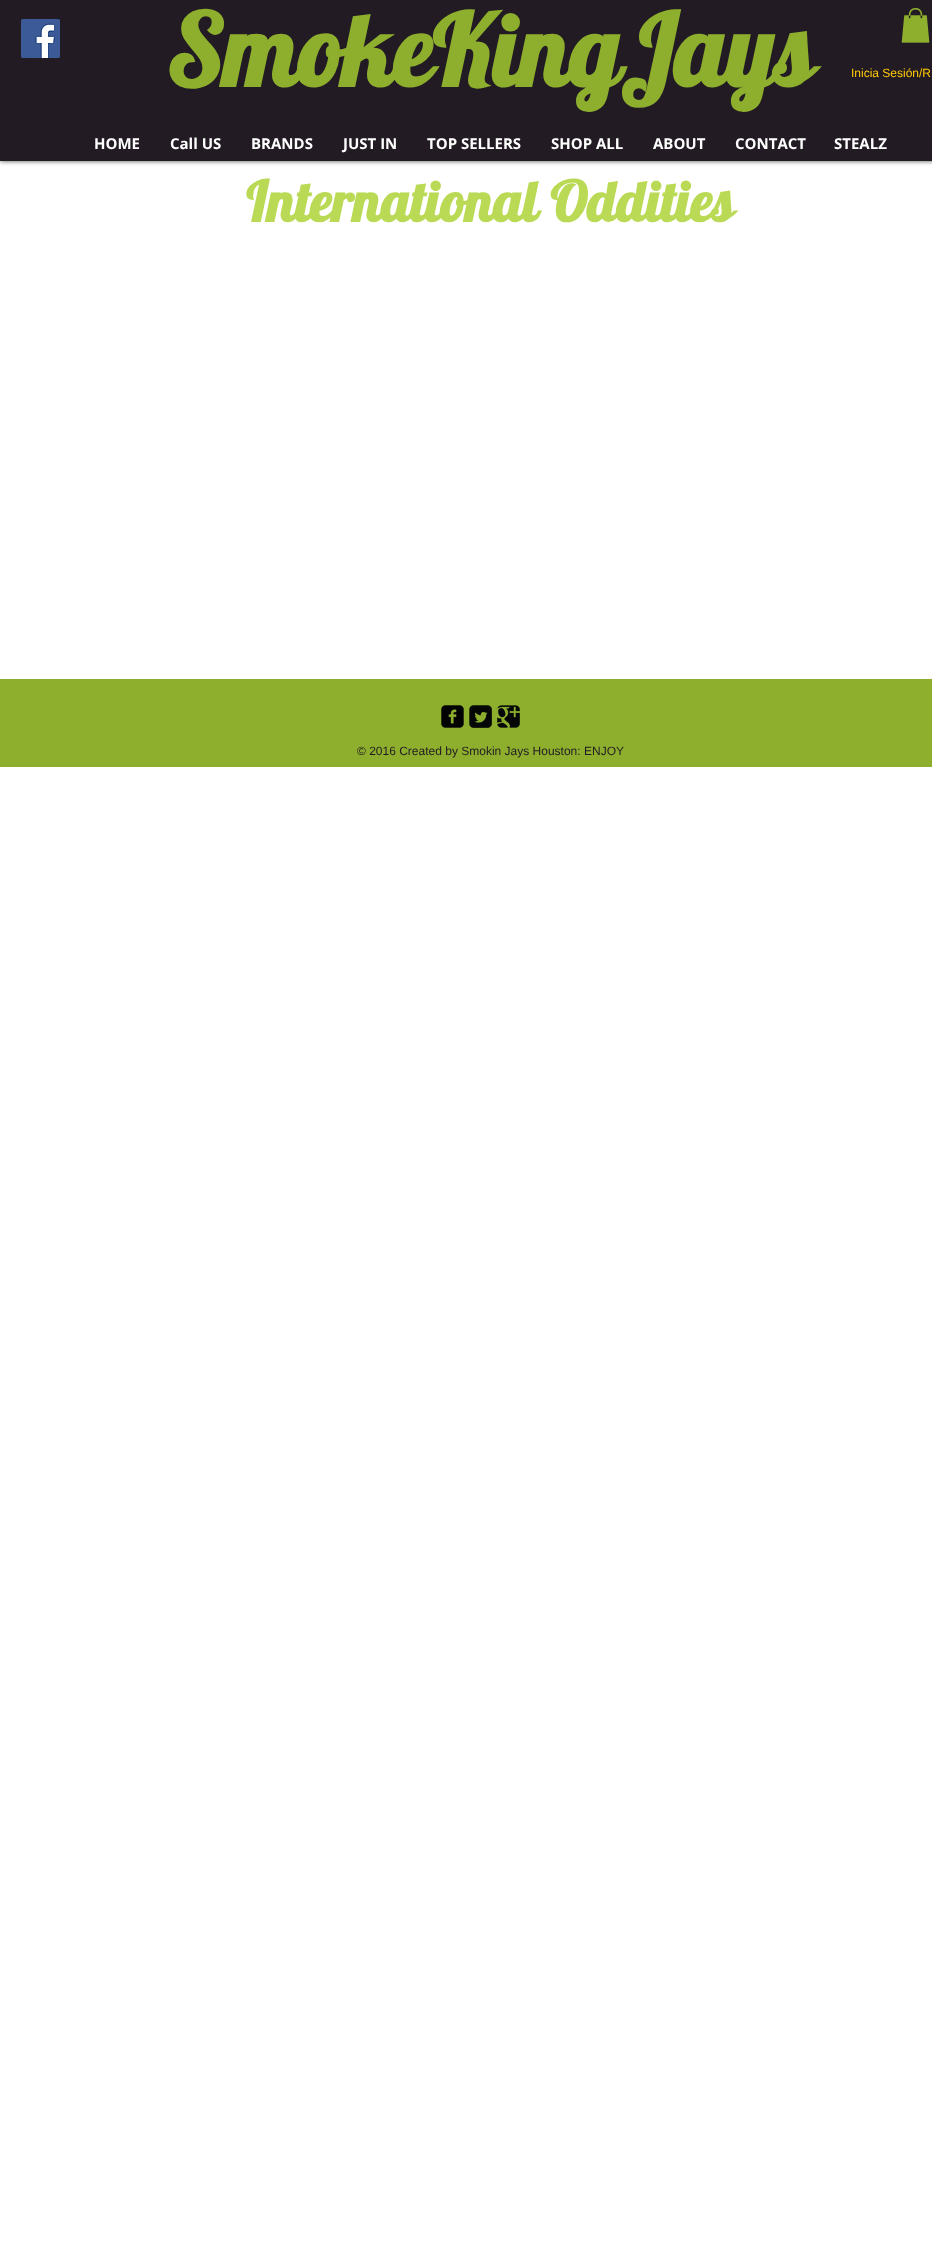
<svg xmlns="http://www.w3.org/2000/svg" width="932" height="2257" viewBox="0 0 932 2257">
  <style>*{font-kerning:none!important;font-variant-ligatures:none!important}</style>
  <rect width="100%" height="100%" fill="rgb(255,255,255)"/>
  <rect x="0" y="0" width="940" height="161" fill="rgba(0,0,0,0.7)" filter="blur(2.5px)"/>
  <rect x="0" y="0" width="932" height="161" fill="rgb(34,27,35)"/>
  <image x="21" y="19" width="39" height="39" href="pic1.png"/>
  <text x="166" y="87" font-family="Lobster" font-size="100" font-weight="bold" fill="rgb(141,175,45)">SmokeKingJays</text>
  <image x="901" y="8" width="29" height="35" href="pic2.png"/>
  <text x="851" y="77" font-family="Liberation Sans" font-size="12" fill="rgb(255,203,5)">Inicia Sesión/R</text>
  <g font-family="Open Sans" font-size="15" font-weight="bold" fill="rgb(255,255,255)">
    <text x="94" y="149">HOME</text>
    <text x="170" y="149">Call US</text>
    <text x="251" y="149">BRANDS</text>
    <text x="343" y="149">JUST IN</text>
    <text x="427" y="149">TOP SELLERS</text>
    <text x="551" y="149">SHOP ALL</text>
    <text x="653" y="149">ABOUT</text>
    <text x="735" y="149">CONTACT</text>
    <text x="834" y="149">STEALZ</text>
  </g>
  <text x="246" y="222" font-family="Lobster" font-size="56" font-weight="bold" fill="rgb(186,218,85)">International Oddities</text>
  <rect x="0" y="679" width="932" height="88" fill="rgb(141,175,45)"/>
  <image x="441" y="705" width="23" height="23" href="pic3.png"/>
  <image x="469" y="705" width="23" height="23" href="pic4.png"/>
  <image x="497" y="705" width="23" height="23" href="pic5.png"/>
  <text x="357" y="755" font-family="Liberation Sans" font-size="12" fill="rgb(34,27,35)">© 2016 Created by Smokin Jays Houston: ENJOY</text>
</svg>
